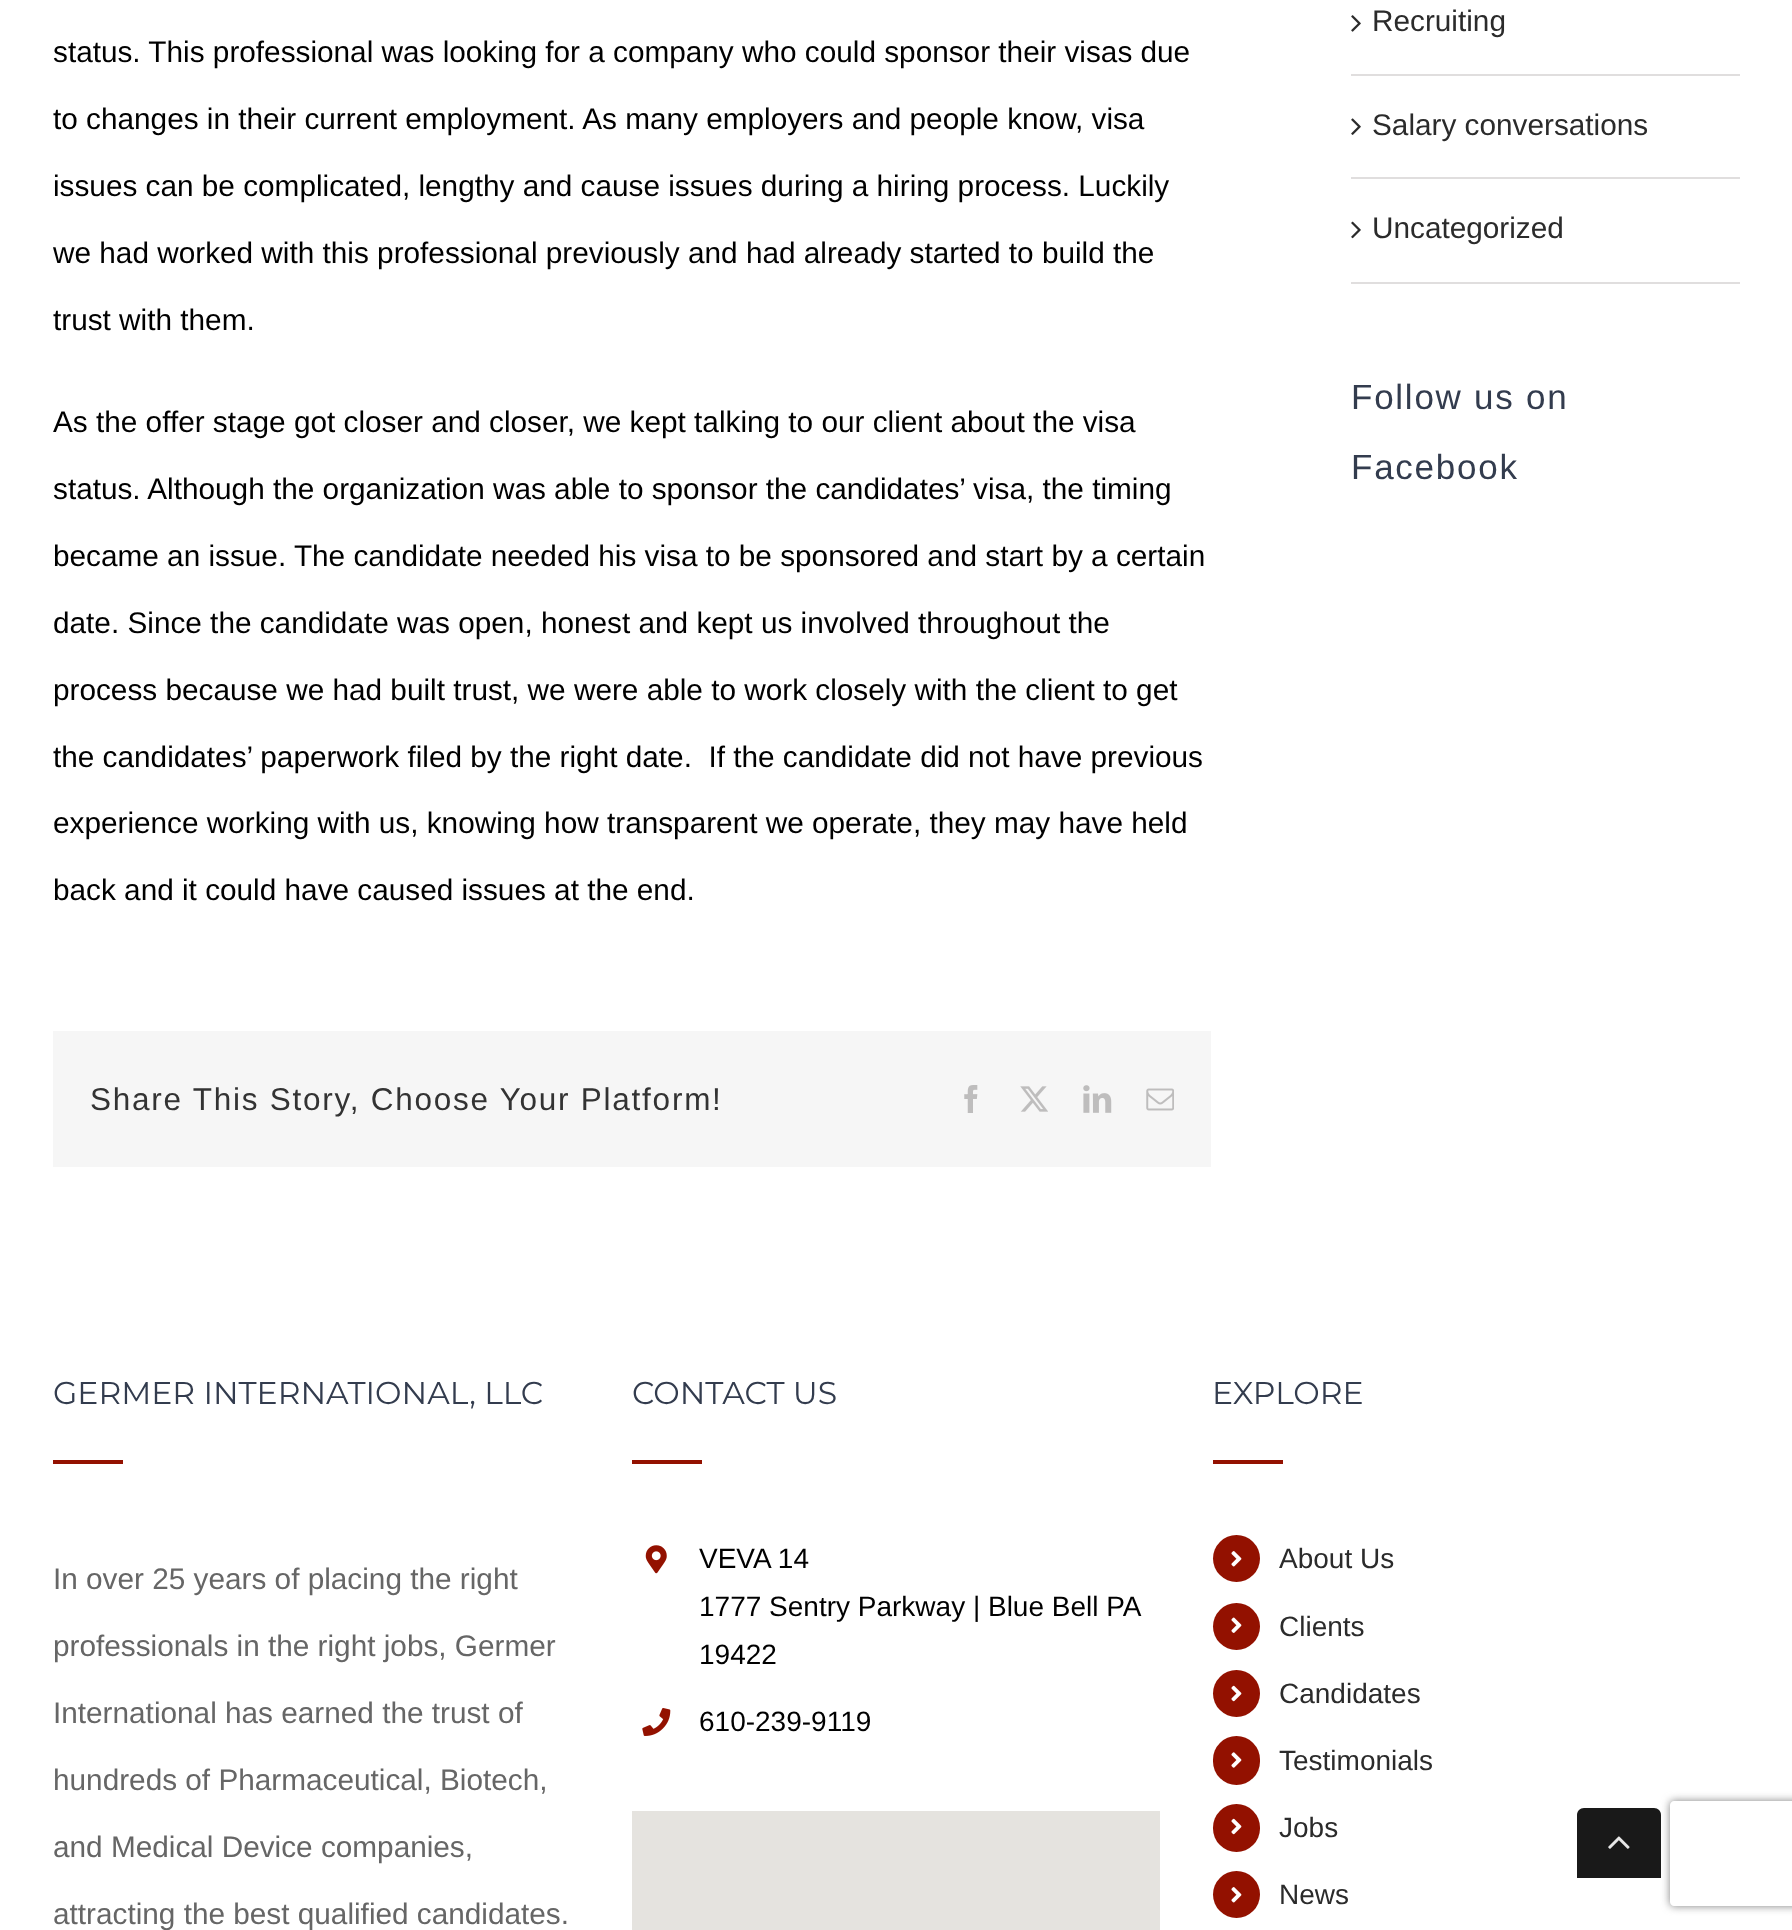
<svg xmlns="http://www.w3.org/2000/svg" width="1792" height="1930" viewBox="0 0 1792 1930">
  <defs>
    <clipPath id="clip1"><path d="M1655 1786H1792V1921H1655ZM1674 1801H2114C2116 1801 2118 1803 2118 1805V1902C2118 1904 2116 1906 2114 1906H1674C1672 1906 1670 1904 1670 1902V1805C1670 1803 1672 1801 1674 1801Z" clip-rule="evenodd"/></clipPath>
  </defs>
  <rect width="100%" height="100%" fill="rgb(255,255,255)"/>
  <g font-family="Liberation Sans" font-size="29.75" fill="rgb(0,0,0)">
    <text x="53" y="62">status. This professional was looking for a company who could sponsor their visas due</text>
    <text x="53" y="129">to changes in their current employment. As many employers and people know, visa</text>
    <text x="53" y="196">issues can be complicated, lengthy and cause issues during a hiring process. Luckily</text>
    <text x="53" y="263">we had worked with this professional previously and had already started to build the</text>
    <text x="53" y="330">trust with them.</text>
    <text x="53" y="432">As the offer stage got closer and closer, we kept talking to our client about the visa</text>
    <text x="53" y="499">status. Although the organization was able to sponsor the candidates’ visa, the timing</text>
    <text x="53" y="566">became an issue. The candidate needed his visa to be sponsored and start by a certain</text>
    <text x="53" y="633">date. Since the candidate was open, honest and kept us involved throughout the</text>
    <text x="53" y="700">process because we had built trust, we were able to work closely with the client to get</text>
    <text x="53" y="767" xml:space="preserve">the candidates’ paperwork filed by the right date.  If the candidate did not have previous</text>
    <text x="53" y="833">experience working with us, knowing how transparent we operate, they may have held</text>
    <text x="53" y="900">back and it could have caused issues at the end.</text>
  </g>
  <rect x="53" y="1031" width="1158" height="136" fill="rgb(246,246,246)"/>
  <text x="90" y="1110" font-family="Liberation Sans" font-size="31.5" letter-spacing="1.75" fill="rgb(51,51,51)">Share This Story, Choose Your Platform!</text>
  <image x="964" y="1085" width="14" height="28" href="pic1.png"/>
  <image x="1020" y="1086" width="28" height="26" href="pic2.png"/>
  <image x="1083" y="1085" width="29" height="28" href="pic3.png"/>
  <image x="1146" y="1088" width="28" height="23" href="pic4.png"/>
  <rect x="1351" y="74" width="389" height="2" fill="rgb(224,222,222)"/>
  <image x="1351" y="15" width="10" height="17" href="pic5.png"/>
  <text x="1372" y="31" font-family="Liberation Sans" font-size="29.75" fill="rgb(43,43,43)">Recruiting</text>
  <rect x="1351" y="177" width="389" height="2" fill="rgb(224,222,222)"/>
  <image x="1351" y="118" width="10" height="17" href="pic6.png"/>
  <text x="1372" y="135" font-family="Liberation Sans" font-size="29.75" fill="rgb(43,43,43)">Salary conversations</text>
  <rect x="1351" y="282" width="389" height="2" fill="rgb(224,222,222)"/>
  <image x="1351" y="221" width="10" height="18" href="pic7.png"/>
  <text x="1372" y="238" font-family="Liberation Sans" font-size="29.75" fill="rgb(43,43,43)">Uncategorized</text>
  <g font-family="Liberation Sans" font-size="35" letter-spacing="1.75" fill="rgb(51,60,78)">
    <text x="1351" y="409">Follow us on</text>
    <text x="1351" y="479">Facebook</text>
  </g>
  <text x="53" y="1404" font-family="Montserrat" font-size="31.5" font-weight="100" fill="rgb(51,60,78)">GERMER INTERNATIONAL, LLC</text>
  <rect x="53" y="1460" width="70" height="4" fill="rgb(147,17,0)"/>
  <g font-family="Liberation Sans" font-size="29.75" fill="rgb(102,102,102)">
    <text x="53" y="1589">In over 25 years of placing the right</text>
    <text x="53" y="1656">professionals in the right jobs, Germer</text>
    <text x="53" y="1723">International has earned the trust of</text>
    <text x="53" y="1790">hundreds of Pharmaceutical, Biotech,</text>
    <text x="53" y="1857">and Medical Device companies,</text>
    <text x="53" y="1924">attracting the best qualified candidates.</text>
  </g>
  <text x="632" y="1404" font-family="Montserrat" font-size="31.5" font-weight="100" fill="rgb(51,60,78)">CONTACT US</text>
  <rect x="632" y="1460" width="70" height="4" fill="rgb(147,17,0)"/>
  <image x="645" y="1545" width="22" height="29" href="pic8.png"/>
  <g font-family="Liberation Sans" font-size="28" fill="rgb(0,0,0)">
    <text>
      <tspan x="699" y="1568">VEVA 14</tspan>
      <tspan x="699" y="1616">1777 Sentry Parkway | Blue Bell PA</tspan>
      <tspan x="699" y="1664">19422</tspan>
    </text>
  </g>
  <image x="642" y="1708" width="29" height="28" href="pic9.png"/>
  <text x="699" y="1731" font-family="Liberation Sans" font-size="28" fill="rgb(0,0,0)">610-239-9119</text>
  <rect x="632" y="1811" width="528" height="119" fill="rgb(229,227,223)"/>
  <text x="1212" y="1404" font-family="Montserrat" font-size="31.5" font-weight="100" fill="rgb(51,60,78)">EXPLORE</text>
  <rect x="1213" y="1460" width="70" height="4" fill="rgb(147,17,0)"/>
  <circle cx="1236.5" cy="1558.5" r="23.5" fill="rgb(147,17,0)"/>
  <image x="1231" y="1551" width="11" height="16" href="pic10.png"/>
  <text x="1279" y="1568" font-family="Liberation Sans" font-size="28" fill="rgb(43,43,43)">About Us</text>
  <circle cx="1236.5" cy="1626.5" r="23.5" fill="rgb(147,17,0)"/>
  <image x="1231" y="1617" width="11" height="16" href="pic11.png"/>
  <text x="1279" y="1636" font-family="Liberation Sans" font-size="28" fill="rgb(43,43,43)">Clients</text>
  <circle cx="1236.5" cy="1693.5" r="23.5" fill="rgb(147,17,0)"/>
  <image x="1231" y="1685" width="11" height="17" href="pic12.png"/>
  <text x="1279" y="1703" font-family="Liberation Sans" font-size="28" fill="rgb(43,43,43)">Candidates</text>
  <rect x="1213" y="1736" width="47" height="49" rx="23.5" fill="rgb(147,17,0)"/>
  <image x="1231" y="1752" width="11" height="16" href="pic13.png"/>
  <text x="1279" y="1770" font-family="Liberation Sans" font-size="28" fill="rgb(43,43,43)">Testimonials</text>
  <rect x="1213" y="1804" width="47" height="48" rx="23.5" fill="rgb(147,17,0)"/>
  <image x="1231" y="1818" width="11" height="17" href="pic12.png"/>
  <text x="1279" y="1837" font-family="Liberation Sans" font-size="28" fill="rgb(43,43,43)">Jobs</text>
  <circle cx="1236.5" cy="1894.5" r="23.5" fill="rgb(147,17,0)"/>
  <image x="1231" y="1887" width="11" height="16" href="pic10.png"/>
  <text x="1279" y="1904" font-family="Liberation Sans" font-size="28" fill="rgb(43,43,43)">News</text>
  <g clip-path="url(#clip1)">
    <rect x="1670" y="1801" width="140" height="105" rx="4" fill="rgb(128,128,128)" filter="blur(4.5px)"/>
  </g>
  <path d="M1584 1808H1654C1658 1808 1661 1811 1661 1815V1878H1577V1815C1577 1811 1580 1808 1584 1808Z" fill="rgb(25,25,25)"/>
  <image x="1608" y="1836" width="22" height="13" href="pic14.png"/>
</svg>
